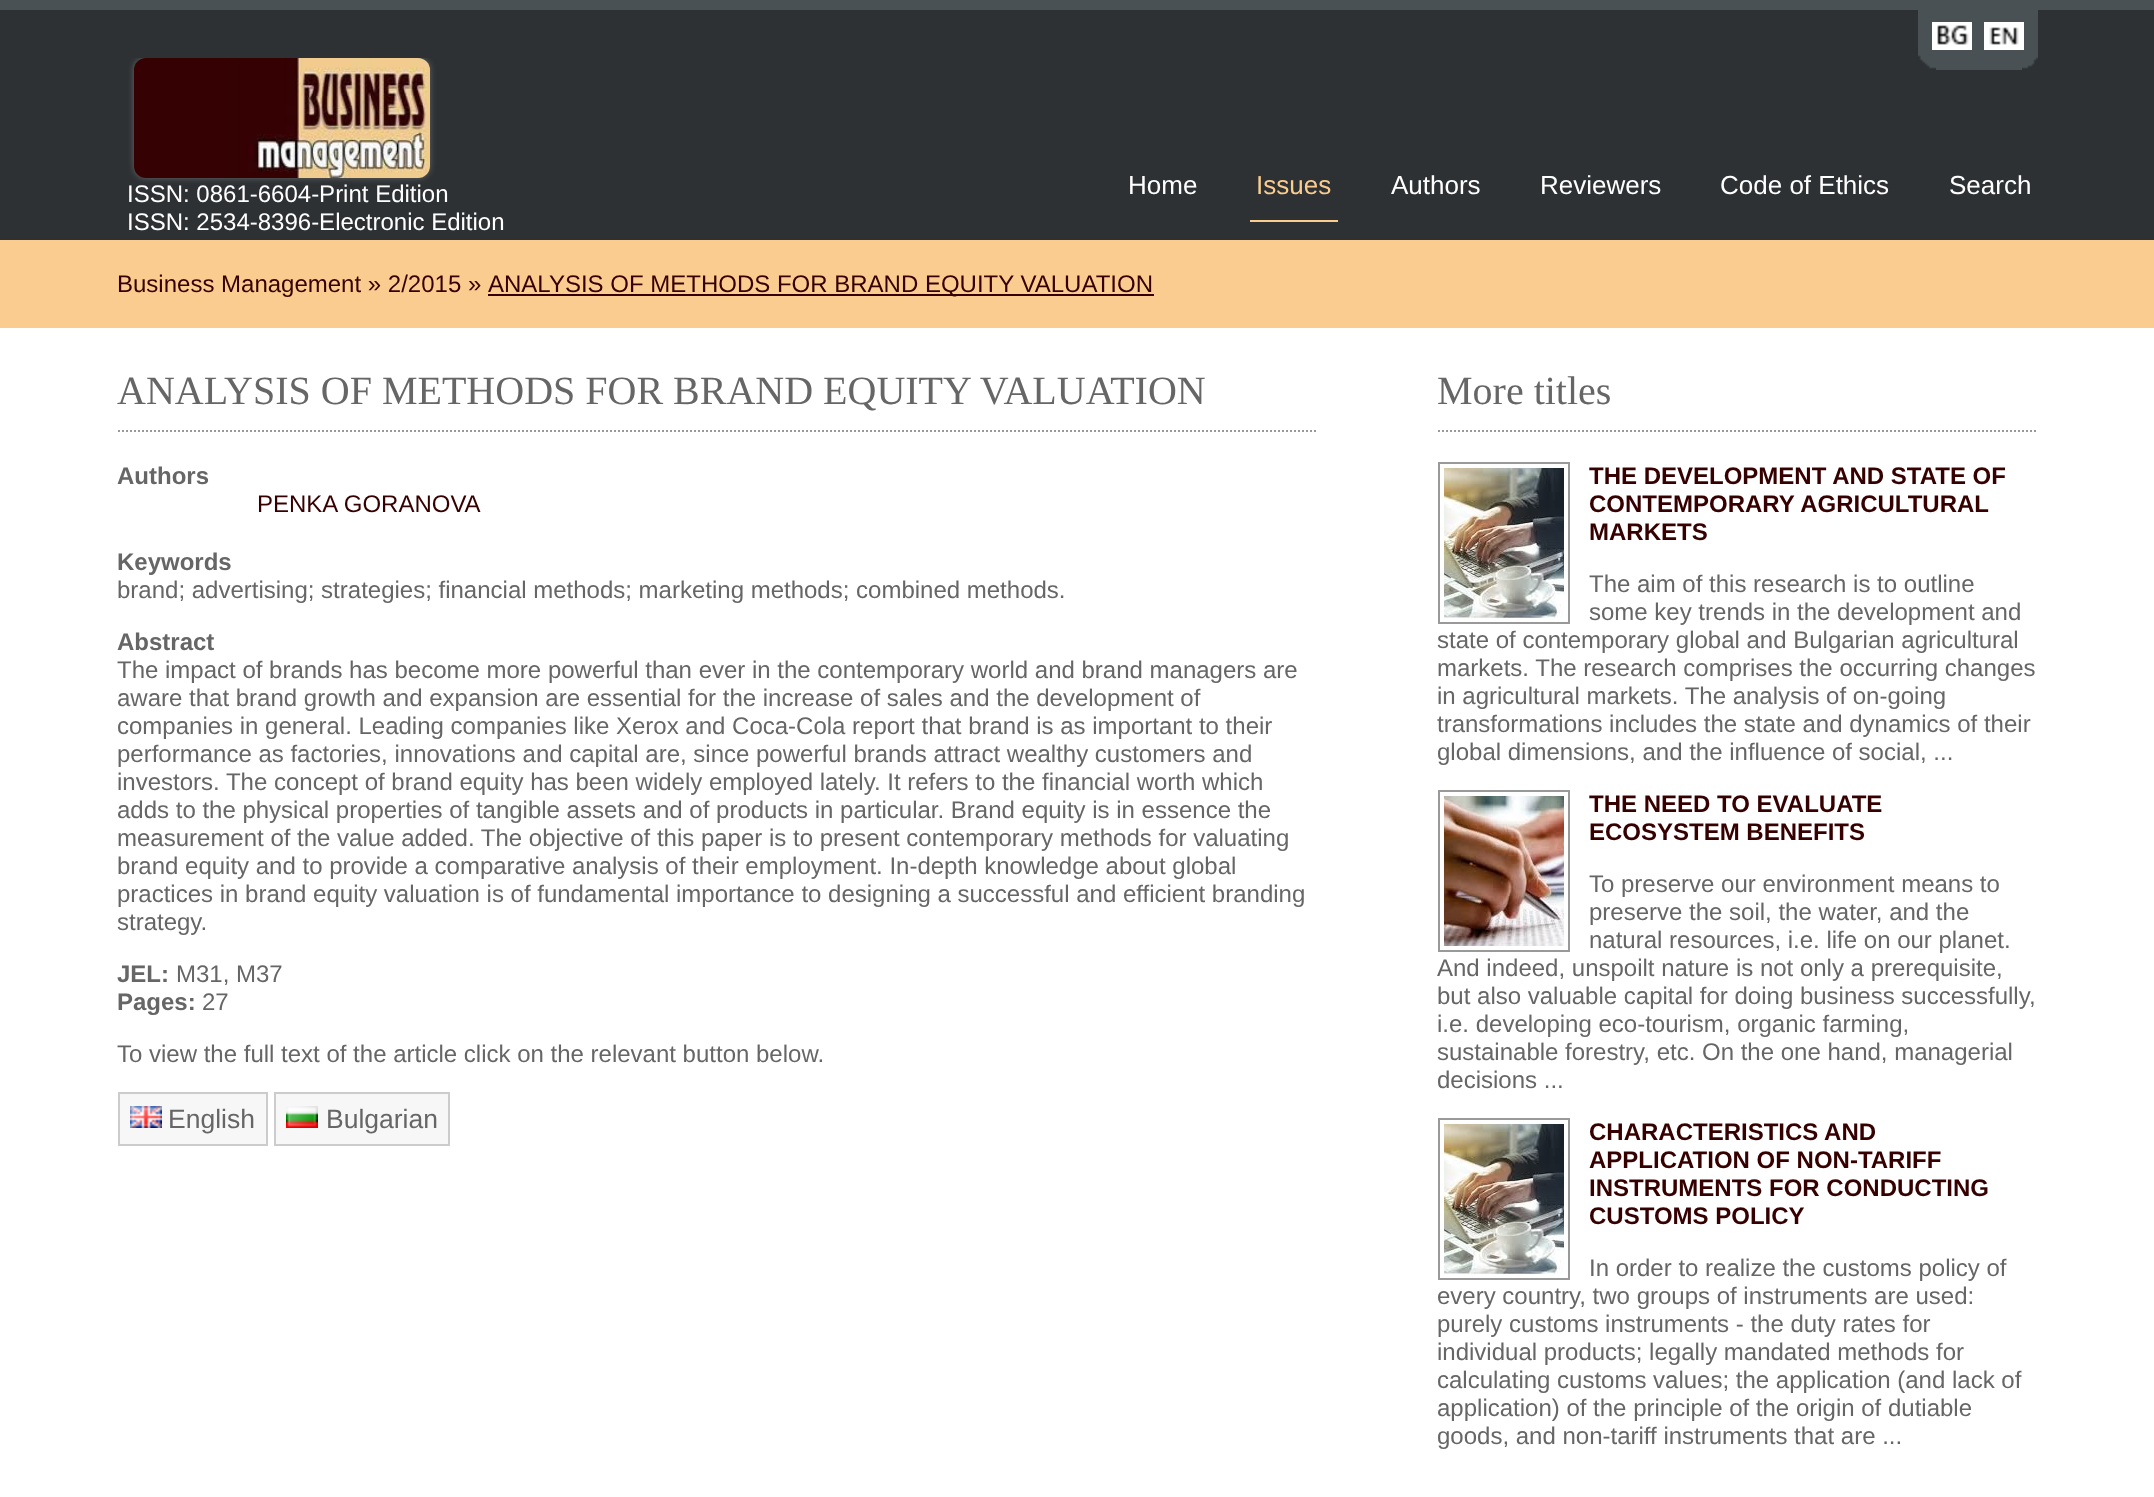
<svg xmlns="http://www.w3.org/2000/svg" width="2154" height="1497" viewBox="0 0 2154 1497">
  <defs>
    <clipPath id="clip1"><rect x="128" y="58" width="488" height="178"/></clipPath>
  </defs>
  <rect width="100%" height="100%" fill="rgb(255,255,255)"/>
  <rect x="0" y="10" width="2154" height="230" fill="rgb(45,49,52)"/>
  <rect x="0" y="0" width="2154" height="10" fill="rgb(74,81,85)"/>
  <rect x="1918" y="10" width="120" height="60" fill="rgb(74,81,85)"/>
  <image x="1918" y="55" width="18" height="15" href="pic1.png"/>
  <image x="1932" y="22" width="40" height="28" href="pic2.png"/>
  <image x="2022" y="57" width="16" height="13" href="pic3.png"/>
  <image x="1984" y="22" width="40" height="28" href="pic4.png"/>
  <g clip-path="url(#clip1)">
    <rect x="134" y="58" width="296" height="120" rx="12" fill="rgb(102,102,102)" filter="blur(3px)"/>
  </g>
  <image x="134" y="58" width="296" height="120" href="pic5.png"/>
  <g font-family="Liberation Sans" font-size="24" fill="rgb(255,255,255)">
    <text>
      <tspan x="127" y="202">ISSN: 0861-6604-Print Edition</tspan>
      <tspan x="127" y="230">ISSN: 2534-8396-Electronic Edition</tspan>
    </text>
  </g>
  <text x="1128" y="194" font-family="Liberation Sans" font-size="26" fill="rgb(255,255,255)">Home</text>
  <text x="1256" y="194" font-family="Liberation Sans" font-size="26" fill="rgb(250,204,144)">Issues</text>
  <rect x="1250" y="220" width="88" height="2" fill="rgb(250,204,144)"/>
  <g font-family="Liberation Sans" font-size="26" fill="rgb(255,255,255)">
    <text x="1391" y="194">Authors</text>
    <text x="1540" y="194">Reviewers</text>
    <text x="1720" y="194">Code of Ethics</text>
    <text x="1949" y="194">Search</text>
  </g>
  <rect x="0" y="240" width="2154" height="88" fill="rgb(250,204,144)"/>
  <text x="117" y="292" font-family="Liberation Sans" font-size="24" fill="rgb(54,0,0)">Business Management » 2/2015 »</text>
  <rect x="488" y="294" width="666" height="2" fill="rgb(54,0,0)"/>
  <text x="488" y="292" font-family="Liberation Sans" font-size="24" fill="rgb(54,0,0)">ANALYSIS OF METHODS FOR BRAND EQUITY VALUATION</text>
  <path d="M118 431H1318" fill="none" stroke="rgb(153,153,153)" stroke-width="2" stroke-dasharray="2 2"/>
  <text x="117" y="404" font-family="Liberation Serif" font-size="40" fill="rgb(102,102,102)">ANALYSIS OF METHODS FOR BRAND EQUITY VALUATION</text>
  <text x="117" y="484" font-family="Liberation Sans" font-size="24" font-weight="bold" fill="rgb(102,102,102)">Authors</text>
  <text x="257" y="512" font-family="Liberation Sans" font-size="24" fill="rgb(54,0,0)">PENKA GORANOVA</text>
  <text x="117" y="570" font-family="Liberation Sans" font-size="24" font-weight="bold" fill="rgb(102,102,102)">Keywords</text>
  <text x="117" y="598" font-family="Liberation Sans" font-size="24" fill="rgb(102,102,102)">brand; advertising; strategies; financial methods; marketing methods; combined methods.</text>
  <text x="117" y="650" font-family="Liberation Sans" font-size="24" font-weight="bold" fill="rgb(102,102,102)">Abstract</text>
  <g font-family="Liberation Sans" font-size="24" fill="rgb(102,102,102)">
    <text>
      <tspan x="117" y="678">The impact of brands has become more powerful than ever in the contemporary world and brand managers are</tspan>
      <tspan x="117" y="706">aware that brand growth and expansion are essential for the increase of sales and the development of</tspan>
      <tspan x="117" y="734">companies in general. Leading companies like Xerox and Coca-Cola report that brand is as important to their</tspan>
      <tspan x="117" y="762">performance as factories, innovations and capital are, since powerful brands attract wealthy customers and</tspan>
      <tspan x="117" y="790">investors. The concept of brand equity has been widely employed lately. It refers to the financial worth which</tspan>
      <tspan x="117" y="818">adds to the physical properties of tangible assets and of products in particular. Brand equity is in essence the</tspan>
      <tspan x="117" y="846">measurement of the value added. The objective of this paper is to present contemporary methods for valuating</tspan>
      <tspan x="117" y="874">brand equity and to provide a comparative analysis of their employment. In-depth knowledge about global</tspan>
      <tspan x="117" y="902">practices in brand equity valuation is of fundamental importance to designing a successful and efficient branding</tspan>
      <tspan x="117" y="930">strategy.</tspan>
    </text>
  </g>
  <text x="117" y="982" font-family="Liberation Sans" font-size="24" font-weight="bold" fill="rgb(102,102,102)">JEL:</text>
  <text x="176" y="982" font-family="Liberation Sans" font-size="24" fill="rgb(102,102,102)">M31, M37</text>
  <text x="117" y="1010" font-family="Liberation Sans" font-size="24" font-weight="bold" fill="rgb(102,102,102)">Pages:</text>
  <g font-family="Liberation Sans" font-size="24" fill="rgb(102,102,102)">
    <text x="202" y="1010">27</text>
    <text x="117" y="1062">To view the full text of the article click on the relevant button below.</text>
  </g>
  <rect x="119" y="1093" width="148" height="52" fill="rgb(247,247,247)" stroke="rgb(204,204,204)" stroke-width="2"/>
  <image x="130" y="1106" width="32" height="22" href="pic6.png"/>
  <text x="168" y="1128" font-family="Liberation Sans" font-size="26.5" fill="rgb(102,102,102)">English</text>
  <rect x="275" y="1093" width="174" height="52" fill="rgb(247,247,247)" stroke="rgb(204,204,204)" stroke-width="2"/>
  <image x="286" y="1106" width="32" height="22" href="pic7.png"/>
  <text x="326" y="1128" font-family="Liberation Sans" font-size="26.5" fill="rgb(102,102,102)">Bulgarian</text>
  <path d="M1438 431H2038" fill="none" stroke="rgb(153,153,153)" stroke-width="2" stroke-dasharray="2 2"/>
  <text x="1437" y="404" font-family="Liberation Serif" font-size="40" fill="rgb(102,102,102)">More titles</text>
  <rect x="1439" y="463" width="130" height="160" fill="none" stroke="rgb(153,153,153)" stroke-width="2"/>
  <image x="1444" y="468" width="120" height="150" href="pic8.png"/>
  <g font-family="Liberation Sans" font-size="24" font-weight="bold" fill="rgb(54,0,0)">
    <text>
      <tspan x="1589" y="484">THE DEVELOPMENT AND STATE OF</tspan>
      <tspan x="1589" y="512">CONTEMPORARY AGRICULTURAL</tspan>
      <tspan x="1589" y="540">MARKETS</tspan>
    </text>
  </g>
  <g font-family="Liberation Sans" font-size="24" fill="rgb(102,102,102)">
    <text>
      <tspan x="1589" y="592">The aim of this research is to outline</tspan>
      <tspan x="1589" y="620">some key trends in the development and</tspan>
    </text>
    <text>
      <tspan x="1437" y="648">state of contemporary global and Bulgarian agricultural</tspan>
      <tspan x="1437" y="676">markets. The research comprises the occurring changes</tspan>
      <tspan x="1437" y="704">in agricultural markets. The analysis of on-going</tspan>
      <tspan x="1437" y="732">transformations includes the state and dynamics of their</tspan>
      <tspan x="1437" y="760">global dimensions, and the influence of social, ...</tspan>
    </text>
  </g>
  <rect x="1439" y="791" width="130" height="160" fill="none" stroke="rgb(153,153,153)" stroke-width="2"/>
  <image x="1444" y="796" width="120" height="150" href="pic9.png"/>
  <g font-family="Liberation Sans" font-size="24" font-weight="bold" fill="rgb(54,0,0)">
    <text>
      <tspan x="1589" y="812">THE NEED TO EVALUATE</tspan>
      <tspan x="1589" y="840">ECOSYSTEM BENEFITS</tspan>
    </text>
  </g>
  <g font-family="Liberation Sans" font-size="24" fill="rgb(102,102,102)">
    <text>
      <tspan x="1589" y="892">To preserve our environment means to</tspan>
      <tspan x="1589" y="920">preserve the soil, the water, and the</tspan>
      <tspan x="1589" y="948">natural resources, i.e. life on our planet.</tspan>
    </text>
    <text>
      <tspan x="1437" y="976">And indeed, unspoilt nature is not only a prerequisite,</tspan>
      <tspan x="1437" y="1004">but also valuable capital for doing business successfully,</tspan>
      <tspan x="1437" y="1032">i.e. developing eco-tourism, organic farming,</tspan>
      <tspan x="1437" y="1060">sustainable forestry, etc. On the one hand, managerial</tspan>
      <tspan x="1437" y="1088">decisions ...</tspan>
    </text>
  </g>
  <rect x="1439" y="1119" width="130" height="160" fill="none" stroke="rgb(153,153,153)" stroke-width="2"/>
  <image x="1444" y="1124" width="120" height="150" href="pic8.png"/>
  <g font-family="Liberation Sans" font-size="24" font-weight="bold" fill="rgb(54,0,0)">
    <text>
      <tspan x="1589" y="1140">CHARACTERISTICS AND</tspan>
      <tspan x="1589" y="1168">APPLICATION OF NON-TARIFF</tspan>
      <tspan x="1589" y="1196">INSTRUMENTS FOR CONDUCTING</tspan>
      <tspan x="1589" y="1224">CUSTOMS POLICY</tspan>
    </text>
  </g>
  <g font-family="Liberation Sans" font-size="24" fill="rgb(102,102,102)">
    <text x="1589" y="1276">In order to realize the customs policy of</text>
    <text>
      <tspan x="1437" y="1304">every country, two groups of instruments are used:</tspan>
      <tspan x="1437" y="1332">purely customs instruments - the duty rates for</tspan>
      <tspan x="1437" y="1360">individual products; legally mandated methods for</tspan>
      <tspan x="1437" y="1388">calculating customs values; the application (and lack of</tspan>
      <tspan x="1437" y="1416">application) of the principle of the origin of dutiable</tspan>
      <tspan x="1437" y="1444">goods, and non-tariff instruments that are ...</tspan>
    </text>
  </g>
</svg>
